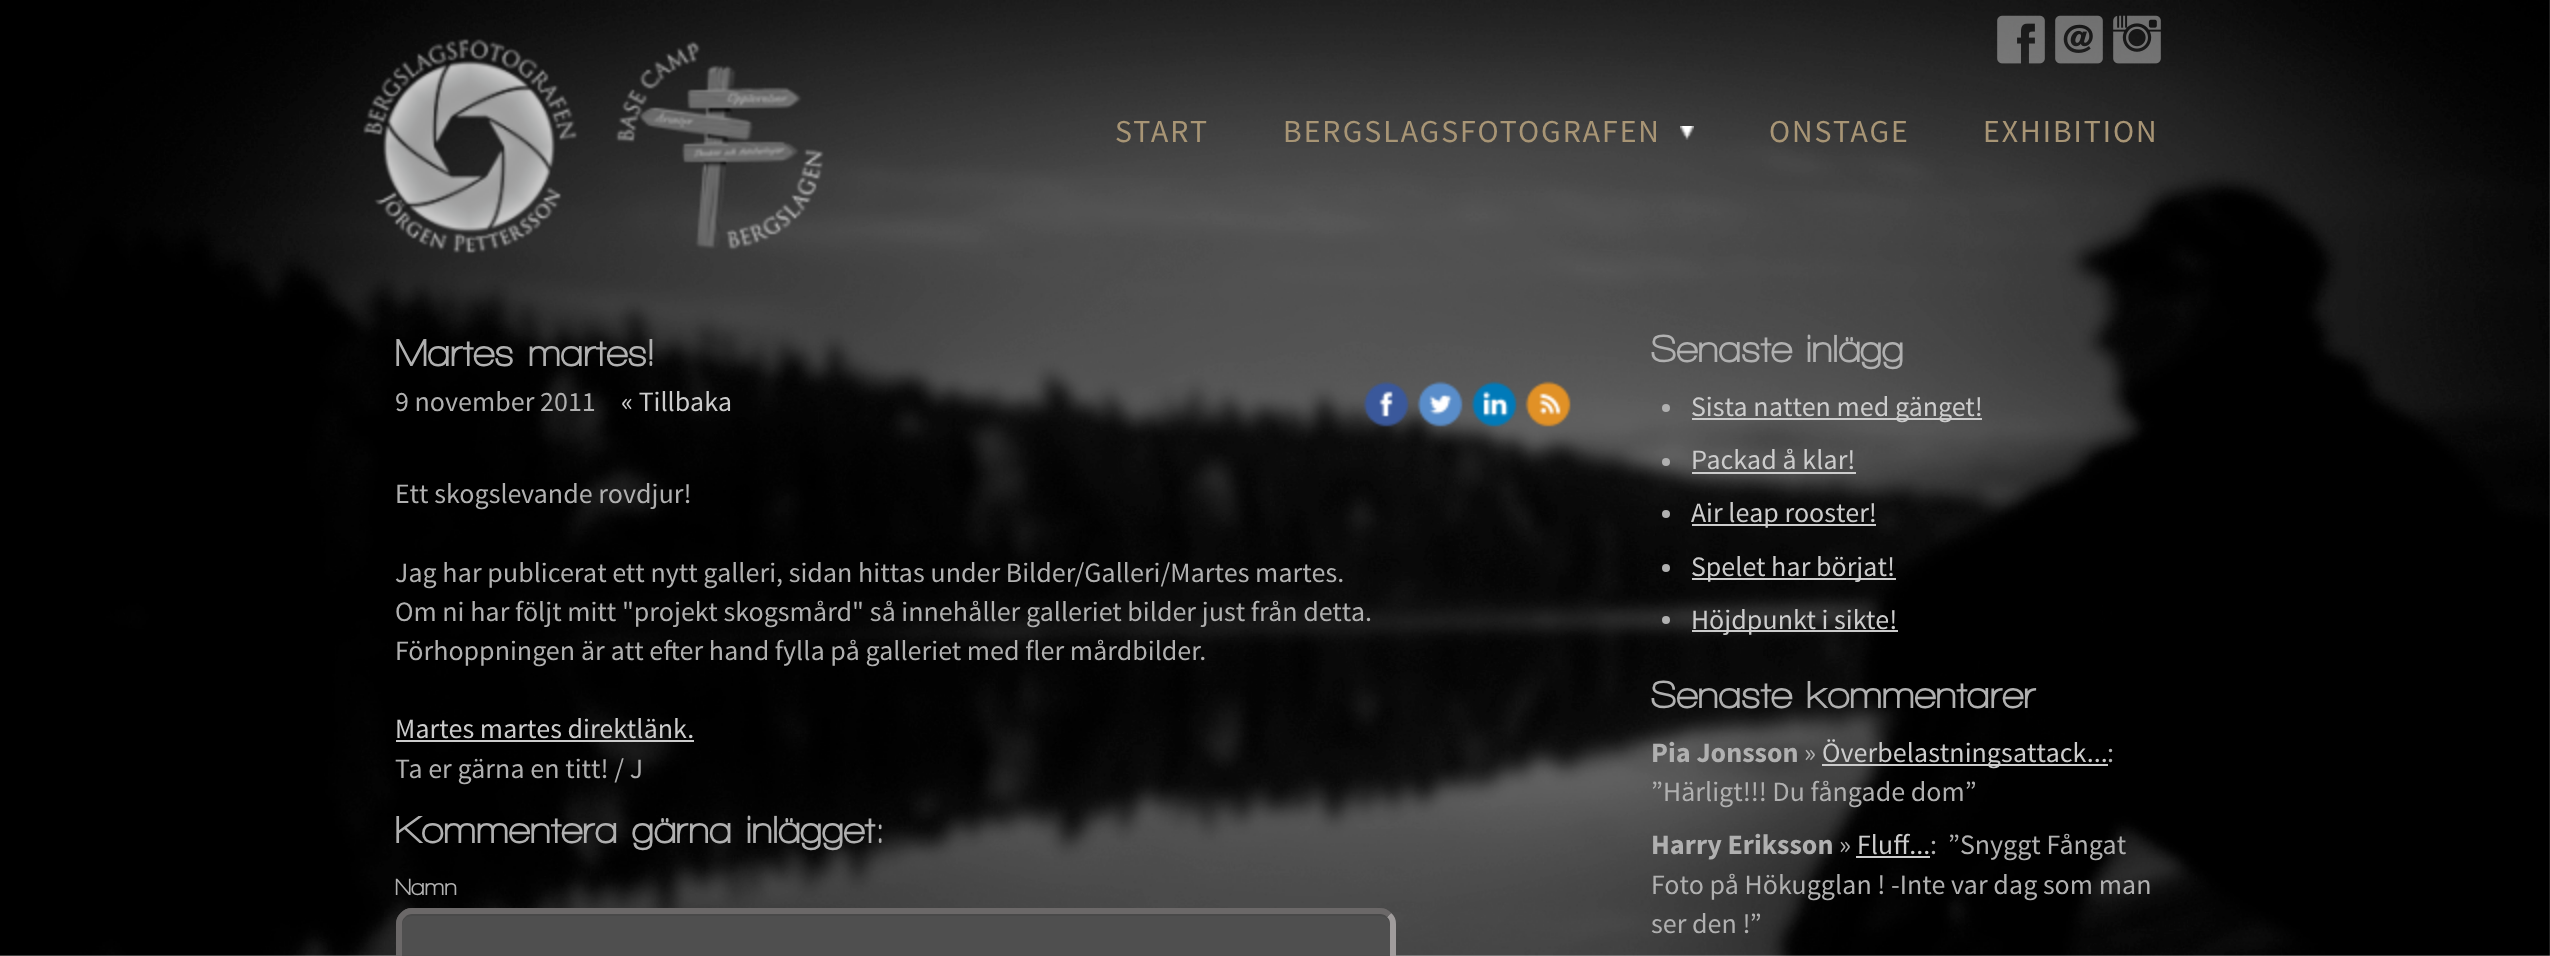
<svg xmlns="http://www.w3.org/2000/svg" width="2550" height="956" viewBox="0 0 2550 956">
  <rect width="100%" height="100%" fill="rgb(255,255,255)"/>
  <image x="0" y="0" width="2550" height="956" href="pic1.png"/>
  <image x="363" y="38" width="461" height="216" href="pic2.png"/>
  <image x="1997" y="15" width="48" height="49" href="pic3.png"/>
  <image x="2055" y="15" width="48" height="49" href="pic4.png"/>
  <image x="2113" y="15" width="48" height="49" href="pic5.png"/>
  <text x="1115" y="142" font-family="Source Sans Pro" font-size="32" letter-spacing="2" fill="rgb(168,149,117)">START</text>
  <image x="1680" y="126" width="14" height="14" href="pic6.png"/>
  <g font-family="Source Sans Pro" font-size="32" letter-spacing="2" fill="rgb(168,149,117)">
    <text x="1283" y="142">BERGSLAGSFOTOGRAFEN</text>
    <text x="1769" y="142">ONSTAGE</text>
    <text x="1983" y="142">EXHIBITION</text>
  </g>
  <text x="395" y="366" font-family="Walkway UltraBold" font-size="40" font-weight="800" fill="rgb(176,176,176)">Martes martes!</text>
  <text x="395" y="411" font-family="Source Sans Pro" font-size="28" fill="rgb(176,176,176)">9 november 2011</text>
  <text x="621" y="411" font-family="Source Sans Pro" font-size="28" fill="rgb(204,204,204)">« Tillbaka</text>
  <image x="1363" y="381" width="46" height="46" href="pic7.png"/>
  <image x="1417" y="381" width="46" height="46" href="pic8.png"/>
  <image x="1471" y="381" width="46" height="46" href="pic9.png"/>
  <image x="1525" y="381" width="46" height="46" href="pic10.png"/>
  <g font-family="Source Sans Pro" font-size="28" fill="rgb(176,176,176)">
    <text x="395" y="503">Ett skogslevande rovdjur!</text>
    <text>
      <tspan x="395" y="582">Jag har publicerat ett nytt galleri, sidan hittas under Bilder/Galleri/Martes martes.</tspan>
      <tspan x="395" y="621">Om ni har följt mitt "projekt skogsmård" så innehåller galleriet bilder just från detta.</tspan>
      <tspan x="395" y="660">Förhoppningen är att efter hand fylla på galleriet med fler mårdbilder.</tspan>
    </text>
  </g>
  <text x="395" y="738" font-family="Source Sans Pro" font-size="28" fill="rgb(204,204,204)">Martes martes direktlänk.</text>
  <rect x="396" y="740" width="298" height="2" fill="rgb(204,204,204)"/>
  <text x="395" y="778" font-family="Source Sans Pro" font-size="28" fill="rgb(176,176,176)">Ta er gärna en titt! / J</text>
  <text x="395" y="843" font-family="Walkway UltraBold" font-size="40" font-weight="800" fill="rgb(176,176,176)">Kommentera gärna inlägget:</text>
  <text x="395" y="895" font-family="Walkway UltraBold" font-size="24" font-weight="800" fill="rgb(176,176,176)">Namn</text>
  <rect x="396" y="908" width="1000" height="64" rx="16" fill="rgb(79,79,79)"/>
  <path d="M412 916H1380C1386 916 1390 920 1390 926V924C1390 918 1386 914 1380 914H412C406 914 402 918 402 924V926C402 920 406 916 412 916Z" fill="rgb(73,73,73)"/>
  <path d="M1389 915C1391.5 917 1393 920.5 1393 924V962C1393 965.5 1391.5 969 1389 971C1387 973.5 1383.5 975 1380 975H412C408.5 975 405 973.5 403 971" fill="none" stroke="rgb(160,156,156)" stroke-width="6"/>
  <path d="M403 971C400.5 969 399 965.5 399 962V924C399 920.5 400.5 917 403 915C405 912.5 408.5 911 412 911H1380C1383.5 911 1387 912.5 1389 915" fill="none" stroke="rgb(107,104,104)" stroke-width="6"/>
  <text x="1651" y="362" font-family="Walkway UltraBold" font-size="40" font-weight="800" fill="rgb(176,176,176)">Senaste inlägg</text>
  <circle cx="1666" cy="408" r="4" fill="rgb(176,176,176)"/>
  <rect x="1692" y="418" width="290" height="2" fill="rgb(204,204,204)"/>
  <text x="1691" y="416" font-family="Source Sans Pro" font-size="28" fill="rgb(204,204,204)">Sista natten med gänget!</text>
  <circle cx="1666" cy="462" r="4" fill="rgb(176,176,176)"/>
  <text x="1691" y="469" font-family="Source Sans Pro" font-size="28" fill="rgb(204,204,204)">Packad å klar!</text>
  <rect x="1692" y="472" width="164" height="2" fill="rgb(204,204,204)"/>
  <circle cx="1666" cy="514" r="4" fill="rgb(176,176,176)"/>
  <rect x="1692" y="524" width="184" height="2" fill="rgb(204,204,204)"/>
  <text x="1691" y="522" font-family="Source Sans Pro" font-size="28" fill="rgb(204,204,204)">Air leap rooster!</text>
  <circle cx="1666" cy="568" r="4" fill="rgb(176,176,176)"/>
  <rect x="1692" y="578" width="204" height="2" fill="rgb(204,204,204)"/>
  <text x="1691" y="576" font-family="Source Sans Pro" font-size="28" fill="rgb(204,204,204)">Spelet har börjat!</text>
  <circle cx="1666" cy="620" r="4" fill="rgb(176,176,176)"/>
  <rect x="1692" y="630" width="206" height="2" fill="rgb(204,204,204)"/>
  <text x="1691" y="629" font-family="Source Sans Pro" font-size="28" fill="rgb(204,204,204)">Höjdpunkt i sikte!</text>
  <text x="1651" y="708" font-family="Walkway UltraBold" font-size="40" font-weight="800" fill="rgb(176,176,176)">Senaste kommentarer</text>
  <text x="1651" y="762" font-family="Source Sans Pro" font-size="28" font-weight="bold" fill="rgb(176,176,176)">Pia Jonsson</text>
  <text x="1804" y="762" font-family="Source Sans Pro" font-size="28" fill="rgb(176,176,176)">»</text>
  <rect x="1822" y="764" width="286" height="2" fill="rgb(204,204,204)"/>
  <text x="1822" y="762" font-family="Source Sans Pro" font-size="28" fill="rgb(204,204,204)">Överbelastningsattack...</text>
  <g font-family="Source Sans Pro" font-size="28" fill="rgb(176,176,176)">
    <text x="2107" y="762">:</text>
    <text x="1651" y="801">”Härligt!!! Du fångade dom”</text>
  </g>
  <text x="1651" y="854" font-family="Source Sans Pro" font-size="28" font-weight="bold" fill="rgb(176,176,176)">Harry Eriksson</text>
  <text x="1839" y="854" font-family="Source Sans Pro" font-size="28" fill="rgb(176,176,176)">»</text>
  <text x="1857" y="854" font-family="Source Sans Pro" font-size="28" fill="rgb(204,204,204)">Fluff...</text>
  <rect x="1856" y="856" width="74" height="2" fill="rgb(204,204,204)"/>
  <g font-family="Source Sans Pro" font-size="28" fill="rgb(176,176,176)">
    <text x="1930" y="854">:</text>
    <text x="1948" y="854">”Snyggt Fångat</text>
    <text>
      <tspan x="1651" y="894">Foto på Hökugglan ! -Inte var dag som man</tspan>
      <tspan x="1651" y="933">ser den !”</tspan>
    </text>
  </g>
</svg>
